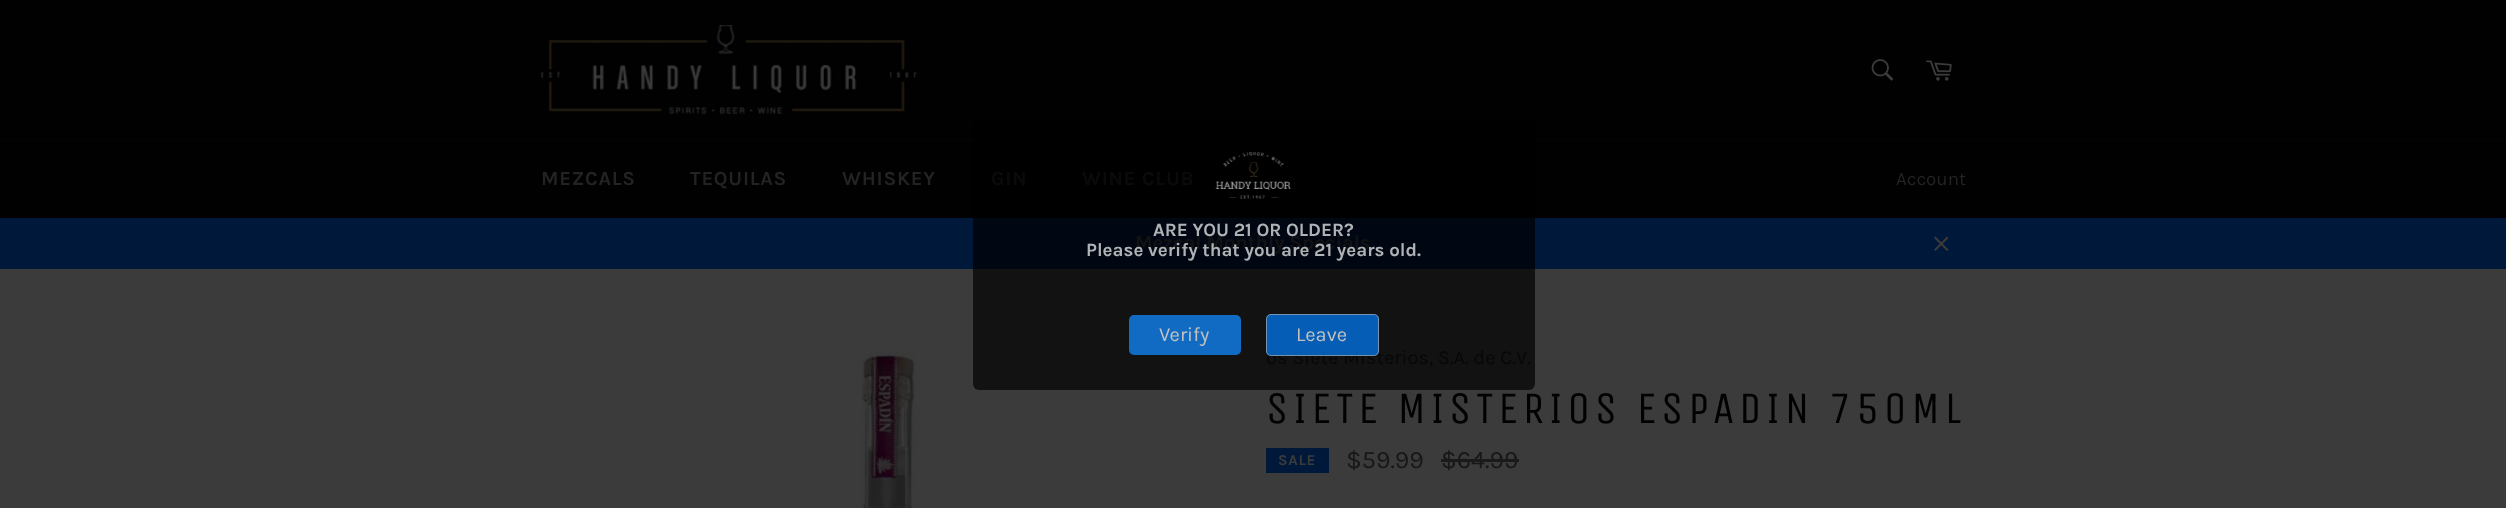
<svg xmlns="http://www.w3.org/2000/svg" width="2506" height="508" viewBox="0 0 2506 508">
  <rect width="100%" height="100%" fill="rgb(1,1,1)"/>
  <image x="541" y="25" width="376" height="89" href="pic1.png"/>
  <image x="1871" y="59" width="23" height="22" href="pic2.png"/>
  <image x="1926" y="60" width="26" height="21" href="pic3.png"/>
  <rect x="0" y="139" width="2506" height="1" fill="rgb(4,4,4)"/>
  <g font-family="Karla" font-size="20" font-weight="bold" letter-spacing="0.75" fill="rgb(35,35,35)">
    <text x="541" y="185">MEZCALS</text>
    <text x="690" y="185">TEQUILAS</text>
    <text x="842" y="185">WHISKEY</text>
    <text x="991" y="185">GIN</text>
    <text x="1082" y="185">WINE CLUB</text>
  </g>
  <text x="1896" y="185" font-family="Karla" font-size="18.75" fill="rgb(35,35,35)">Account</text>
  <rect x="0" y="218" width="2506" height="51" fill="rgb(0,25,59)"/>
  <text x="1135" y="249" font-family="Karla" font-size="20" font-weight="bold" fill="rgb(59,59,59)">Mezcal Monthly Specials</text>
  <image x="1934" y="236" width="15" height="15" href="pic4.png"/>
  <rect x="0" y="269" width="2506" height="239" fill="rgb(59,59,59)"/>
  <text x="1266" y="364" font-family="Karla" font-size="20" fill="rgb(23,23,23)">os Siete Misterios, S.A. de C.V.</text>
  <rect x="973" y="120" width="562" height="270" rx="6" fill="rgba(0,0,0,0.69)"/>
  <image x="1215" y="152" width="76" height="47" href="pic5.png"/>
  <g font-family="Karla" font-size="18.75" font-weight="bold" fill="rgb(176,179,182)">
    <text x="1153" y="236">ARE YOU 21 OR OLDER?</text>
    <text x="1086" y="256">Please verify that you are 21 years old.</text>
  </g>
  <rect x="1129" y="315" width="112" height="40" rx="5" fill="rgb(18,107,194)"/>
  <text x="1159" y="341" font-family="Karla" font-size="20" fill="rgb(194,194,194)">Verify</text>
  <rect x="1266" y="314" width="113" height="42" rx="5" fill="rgba(0,128,255,0.69)"/>
  <rect x="1266.5" y="314.5" width="112" height="41" rx="4.5" fill="none" stroke="rgba(169,169,169,0.69)"/>
  <text x="1296" y="341" font-family="Karla" font-size="20" fill="rgb(194,194,194)">Leave</text>
  <image x="861" y="351" width="55" height="157" href="pic6.png"/>
  <text x="1266" y="423" font-family="Unica One" font-size="45" letter-spacing="4.5" fill="rgb(1,1,1)">SIETE MISTERIOS ESPADIN 750ML</text>
  <rect x="1266" y="448" width="63" height="25" fill="rgb(0,25,59)"/>
  <text x="1278" y="465" font-family="Karla" font-size="15" font-weight="bold" letter-spacing="0.75" fill="rgb(59,59,59)">SALE</text>
  <g font-family="Karla" font-size="25" fill="rgb(23,23,23)">
    <text x="1346" y="468">$59.99</text>
    <text x="1441" y="468">$64.99</text>
  </g>
  <rect x="1441" y="459" width="78" height="3" fill="rgb(26,26,26)"/>
</svg>
